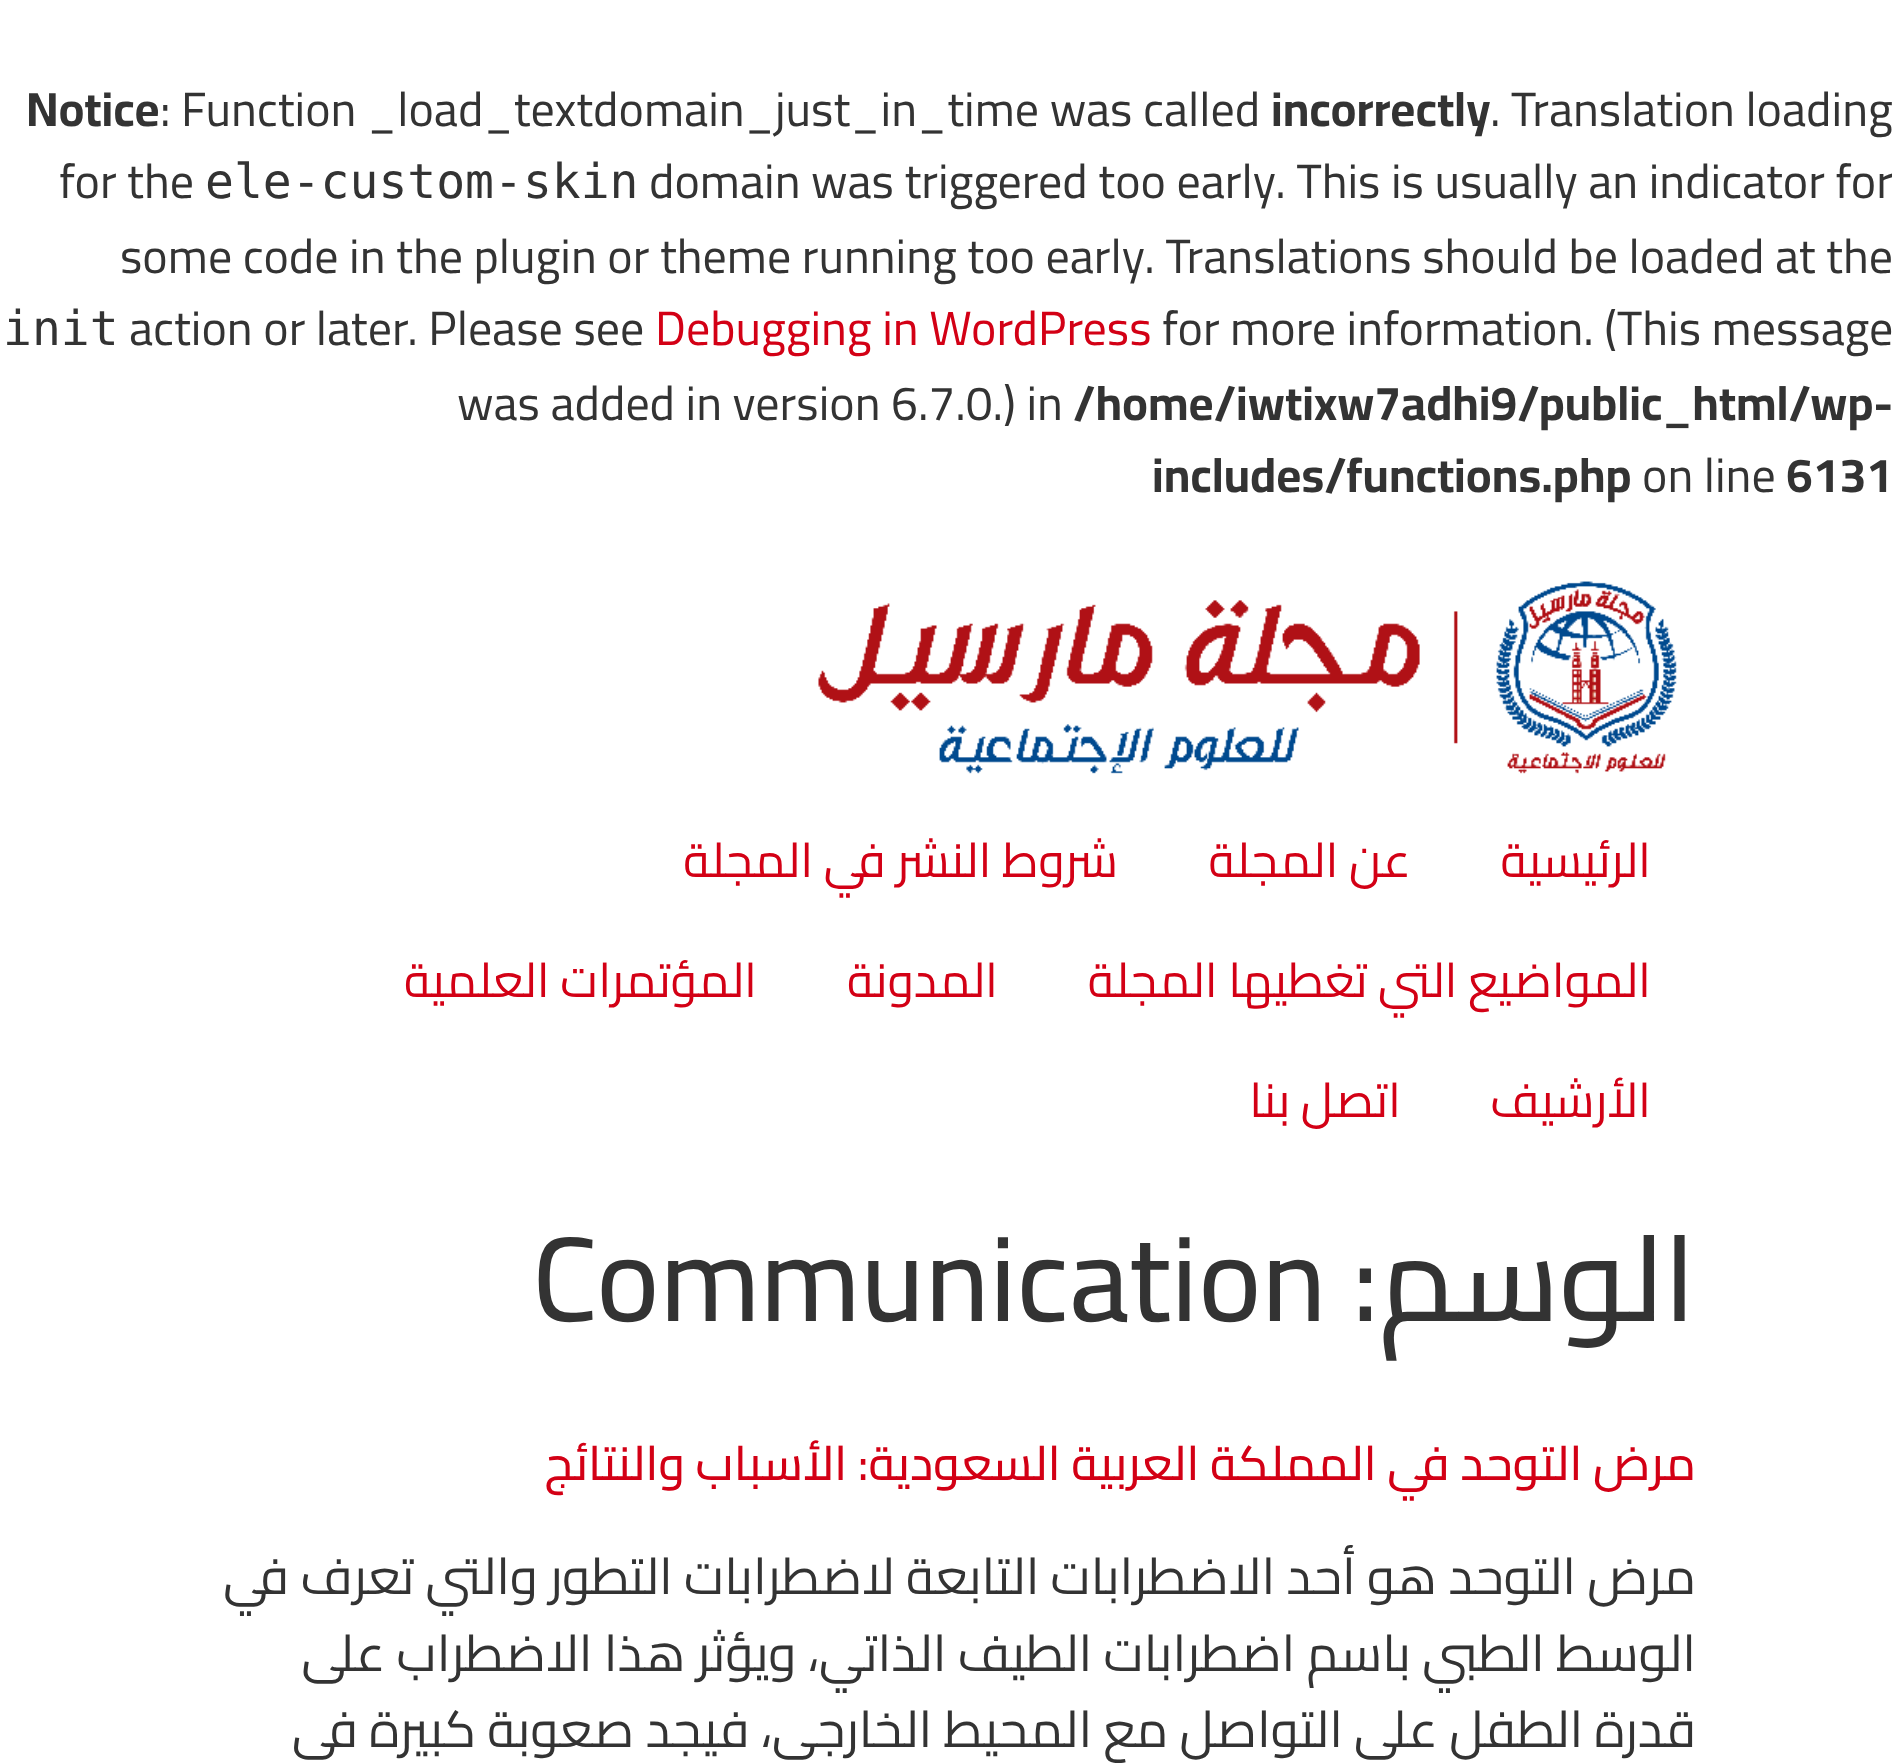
<svg xmlns="http://www.w3.org/2000/svg" width="1892" height="1763" viewBox="0 0 1892 1763">
  <rect width="100%" height="100%" fill="rgb(255,255,255)"/>
  <text x="26" y="126" font-family="Cairo" font-size="48" font-weight="bold" fill="rgb(51,51,51)">Notice</text>
  <text x="160" y="126" font-family="Cairo" font-size="48" fill="rgb(51,51,51)">: Function _load_textdomain_just_in_time was called</text>
  <text x="1271" y="126" font-family="Cairo" font-size="48" font-weight="bold" fill="rgb(51,51,51)">incorrectly</text>
  <g font-family="Cairo" font-size="48" fill="rgb(51,51,51)">
    <text x="1490" y="126">. Translation loading</text>
    <text x="59" y="198">for the</text>
  </g>
  <text x="205" y="198" font-family="DejaVu Sans Mono" font-size="48" fill="rgb(51,51,51)">ele-custom-skin</text>
  <g font-family="Cairo" font-size="48" fill="rgb(51,51,51)">
    <text x="649" y="198">domain was triggered too early. This is usually an indicator for</text>
    <text x="120" y="273">some code in the plugin or theme running too early. Translations should be loaded at the</text>
  </g>
  <text x="3" y="345" font-family="DejaVu Sans Mono" font-size="48" fill="rgb(51,51,51)">init</text>
  <text x="129" y="345" font-family="Cairo" font-size="48" fill="rgb(51,51,51)">action or later. Please see</text>
  <text x="655" y="345" font-family="Cairo" font-size="48" fill="rgb(211,0,21)">Debugging in WordPress</text>
  <g font-family="Cairo" font-size="48" fill="rgb(51,51,51)">
    <text x="1162" y="345">for more information. (This message</text>
    <text x="457" y="420">was added in version 6.7.0.) in</text>
  </g>
  <g font-family="Cairo" font-size="48" font-weight="bold" fill="rgb(51,51,51)">
    <text x="1073" y="420">/home/iwtixw7adhi9/public_html/wp-</text>
    <text x="1152" y="492">includes/functions.php</text>
  </g>
  <text x="1642" y="492" font-family="Cairo" font-size="48" fill="rgb(51,51,51)">on line</text>
  <text x="1786" y="492" font-family="Cairo" font-size="48" font-weight="bold" fill="rgb(51,51,51)">6131</text>
  <image x="818" y="581" width="859" height="193" href="pic1.png"/>
  <g font-family="Cairo" font-size="48" direction="rtl" fill="rgb(211,0,21)">
    <text x="1118" y="877">شروط النشر في المجلة</text>
    <text x="1411" y="877">عن المجلة</text>
    <text x="1651" y="877">الرئيسية</text>
    <text x="757" y="997">المؤتمرات العلمية</text>
    <text x="998" y="997">المدونة</text>
    <text x="1651" y="997">المواضيع التي تغطيها المجلة</text>
    <text x="1401" y="1117">اتصل بنا</text>
    <text x="1651" y="1117">الأرشيف</text>
  </g>
  <text x="532" y="1321" font-family="Cairo" font-size="120" font-weight="500" fill="rgb(51,51,51)">Communication</text>
  <text x="1696" y="1321" font-family="Cairo" font-size="120" font-weight="500" direction="rtl" fill="rgb(51,51,51)">الوسم:</text>
  <text x="1696" y="1480" font-family="Cairo" font-size="48" font-weight="500" direction="rtl" fill="rgb(211,0,21)">مرض التوحد في المملكة العربية السعودية: الأسباب والنتائج</text>
  <g font-family="Cairo" font-size="51" direction="rtl" fill="rgb(51,51,51)">
    <text>
      <tspan x="1696" y="1594">مرض التوحد هو أحد الاضطرابات التابعة لاضطرابات التطور والتي تعرف في</tspan>
      <tspan x="1696" y="1671">الوسط الطبي باسم اضطرابات الطيف الذاتي، ويؤثر هذا الاضطراب على</tspan>
      <tspan x="1696" y="1747">قدرة الطفل على التواصل مع المحيط الخارجي، فيجد صعوبة كبيرة في</tspan>
    </text>
  </g>
</svg>
